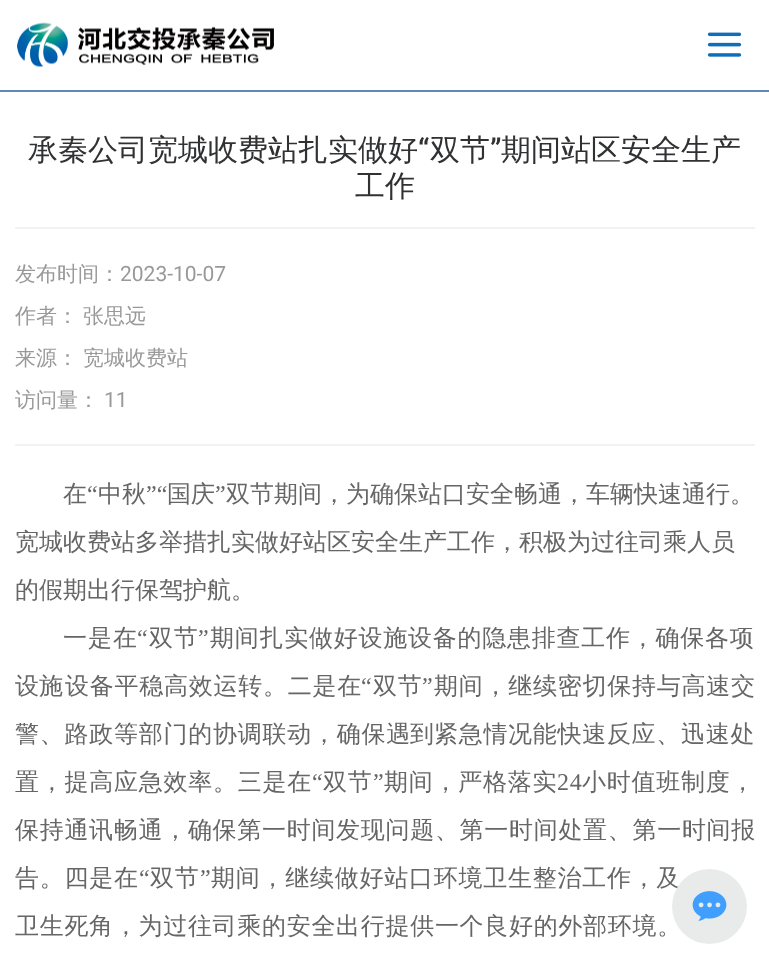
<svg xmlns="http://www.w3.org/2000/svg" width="769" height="965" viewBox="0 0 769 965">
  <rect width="100%" height="100%" fill="rgb(255,255,255)"/>
  <rect x="0" y="90" width="769" height="2" fill="rgb(94,137,184)"/>
  <image x="17" y="22" width="257" height="45" href="pic1.png"/>
  <image x="707" y="32" width="35" height="25" href="pic2.png"/>
  <text x="28" y="160" font-family="WenQuanYi Zen Hei" font-size="30" font-weight="500" fill="rgb(48,49,51)">承秦公司宽城收费站扎实做好</text>
  <text x="418" y="160" font-family="Roboto" font-size="30" font-weight="500" fill="rgb(48,49,51)">“</text>
  <text x="430" y="160" font-family="WenQuanYi Zen Hei" font-size="30" font-weight="500" fill="rgb(48,49,51)">双节</text>
  <text x="490" y="160" font-family="Roboto" font-size="30" font-weight="500" fill="rgb(48,49,51)">”</text>
  <g font-family="WenQuanYi Zen Hei" font-size="30" font-weight="500" fill="rgb(48,49,51)">
    <text x="501" y="160">期间站区安全生产</text>
    <text x="355" y="196">工作</text>
  </g>
  <rect x="15" y="227" width="740" height="2" fill="rgb(242,242,242)"/>
  <text x="15" y="281" font-family="WenQuanYi Zen Hei" font-size="21" font-weight="500" fill="rgb(153,153,153)">发布时间：</text>
  <text x="120" y="281" font-family="Roboto" font-size="21" fill="rgb(153,153,153)">2023-10-07</text>
  <g font-family="WenQuanYi Zen Hei" font-size="21" font-weight="500" fill="rgb(153,153,153)">
    <text x="15" y="323">作者：</text>
    <text x="83" y="323">张思远</text>
    <text x="15" y="365">来源：</text>
    <text x="83" y="365">宽城收费站</text>
    <text x="15" y="407">访问量：</text>
  </g>
  <text x="104" y="407" font-family="Roboto" font-size="21" fill="rgb(153,153,153)">11</text>
  <rect x="15" y="444" width="740" height="2" fill="rgb(242,242,242)"/>
  <text x="63" y="502" font-family="WenQuanYi Zen Hei" font-size="24" font-weight="500" fill="rgb(102,102,102)">在</text>
  <text x="87" y="502" font-family="Liberation Serif" font-size="24" fill="rgb(102,102,102)">“</text>
  <text x="98" y="502" font-family="WenQuanYi Zen Hei" font-size="24" font-weight="500" fill="rgb(102,102,102)">中秋</text>
  <text x="146" y="502" font-family="Liberation Serif" font-size="24" fill="rgb(102,102,102)">”“</text>
  <text x="167" y="502" font-family="WenQuanYi Zen Hei" font-size="24" font-weight="500" fill="rgb(102,102,102)">国庆</text>
  <text x="215" y="502" font-family="Liberation Serif" font-size="24" fill="rgb(102,102,102)">”</text>
  <g font-family="WenQuanYi Zen Hei" font-size="24" font-weight="500" fill="rgb(102,102,102)">
    <text x="226" y="502">双节期间，为确保站口安全畅通，车辆快速通行。</text>
    <text x="15" y="550">宽城收费站多举措扎实做好站区安全生产工作，积极为过往司乘人员</text>
    <text x="15" y="598">的假期出行保驾护航。</text>
  </g>
  <text x="63" y="646" font-family="WenQuanYi Zen Hei" font-size="24" font-weight="500" letter-spacing="1" fill="rgb(102,102,102)">一是在</text>
  <text x="137" y="646" font-family="Liberation Serif" font-size="24" letter-spacing="0.75" fill="rgb(102,102,102)">“</text>
  <text x="149" y="646" font-family="WenQuanYi Zen Hei" font-size="24" font-weight="500" letter-spacing="0.75" fill="rgb(102,102,102)">双节</text>
  <text x="198" y="646" font-family="Liberation Serif" font-size="24" letter-spacing="0.75" fill="rgb(102,102,102)">”</text>
  <text x="210" y="646" font-family="WenQuanYi Zen Hei" font-size="24" font-weight="500" letter-spacing="0.75" fill="rgb(102,102,102)">期间扎实做好设施设备的隐患排查工作，确保各项</text>
  <text x="15" y="694" font-family="WenQuanYi Zen Hei" font-size="24" font-weight="500" fill="rgb(102,102,102)">设施</text>
  <text x="65" y="694" font-family="WenQuanYi Zen Hei" font-size="24" font-weight="500" letter-spacing="0.75" fill="rgb(102,102,102)">设备平稳高效运转。二是在</text>
  <text x="361" y="694" font-family="Liberation Serif" font-size="24" letter-spacing="0.75" fill="rgb(102,102,102)">“</text>
  <text x="373" y="694" font-family="WenQuanYi Zen Hei" font-size="24" font-weight="500" letter-spacing="0.75" fill="rgb(102,102,102)">双节</text>
  <text x="422" y="694" font-family="Liberation Serif" font-size="24" letter-spacing="0.75" fill="rgb(102,102,102)">”</text>
  <g font-family="WenQuanYi Zen Hei" font-size="24" font-weight="500" letter-spacing="0.75" fill="rgb(102,102,102)">
    <text x="434" y="694">期间，继续密切保持与高速交</text>
    <text x="15" y="742">警、路政等部门的协调联动，确保遇</text>
  </g>
  <text x="410" y="742" font-family="WenQuanYi Zen Hei" font-size="24" font-weight="500" fill="rgb(102,102,102)">到</text>
  <text x="434" y="742" font-family="WenQuanYi Zen Hei" font-size="24" font-weight="500" letter-spacing="0.7" fill="rgb(102,102,102)">紧急情况能快速反应、迅速处</text>
  <text x="15" y="790" font-family="WenQuanYi Zen Hei" font-size="24" font-weight="500" letter-spacing="0.75" fill="rgb(102,102,102)">置，提高应急效率。三是在</text>
  <text x="312" y="790" font-family="Liberation Serif" font-size="24" letter-spacing="0.75" fill="rgb(102,102,102)">“</text>
  <text x="323" y="790" font-family="WenQuanYi Zen Hei" font-size="24" font-weight="500" letter-spacing="0.75" fill="rgb(102,102,102)">双节</text>
  <text x="373" y="790" font-family="Liberation Serif" font-size="24" letter-spacing="0.75" fill="rgb(102,102,102)">”</text>
  <text x="384" y="790" font-family="WenQuanYi Zen Hei" font-size="24" font-weight="500" letter-spacing="0.75" fill="rgb(102,102,102)">期间，严格落实</text>
  <text x="557" y="790" font-family="Liberation Serif" font-size="24" letter-spacing="0.75" fill="rgb(102,102,102)">24</text>
  <text x="582" y="790" font-family="WenQuanYi Zen Hei" font-size="24" font-weight="500" letter-spacing="0.75" fill="rgb(102,102,102)">小时值班制度，</text>
  <text x="15" y="838" font-family="WenQuanYi Zen Hei" font-size="24" font-weight="500" letter-spacing="0.7" fill="rgb(102,102,102)">保持通讯畅通，确保第一时间发现问题、第一时间处置、第一时间报</text>
  <text x="15" y="886" font-family="WenQuanYi Zen Hei" font-size="24" font-weight="500" letter-spacing="0.75" fill="rgb(102,102,102)">告。四是在</text>
  <text x="139" y="886" font-family="Liberation Serif" font-size="24" letter-spacing="0.75" fill="rgb(102,102,102)">“</text>
  <text x="150" y="886" font-family="WenQuanYi Zen Hei" font-size="24" font-weight="500" letter-spacing="0.75" fill="rgb(102,102,102)">双节</text>
  <text x="200" y="886" font-family="Liberation Serif" font-size="24" letter-spacing="0.75" fill="rgb(102,102,102)">”</text>
  <text x="211" y="886" font-family="WenQuanYi Zen Hei" font-size="24" font-weight="500" letter-spacing="0.75" fill="rgb(102,102,102)">期间，继续做好站口环境卫生整治工作，及</text>
  <text x="15" y="934" font-family="WenQuanYi Zen Hei" font-size="24" font-weight="500" letter-spacing="0.7" fill="rgb(102,102,102)">卫生死角，为过往司乘的安全出行提供一个良好的外部环境。</text>
  <circle cx="709.5" cy="906.5" r="37.5" fill="rgb(233,235,235)"/>
  <image x="692" y="891" width="35" height="30" href="pic3.png"/>
</svg>
